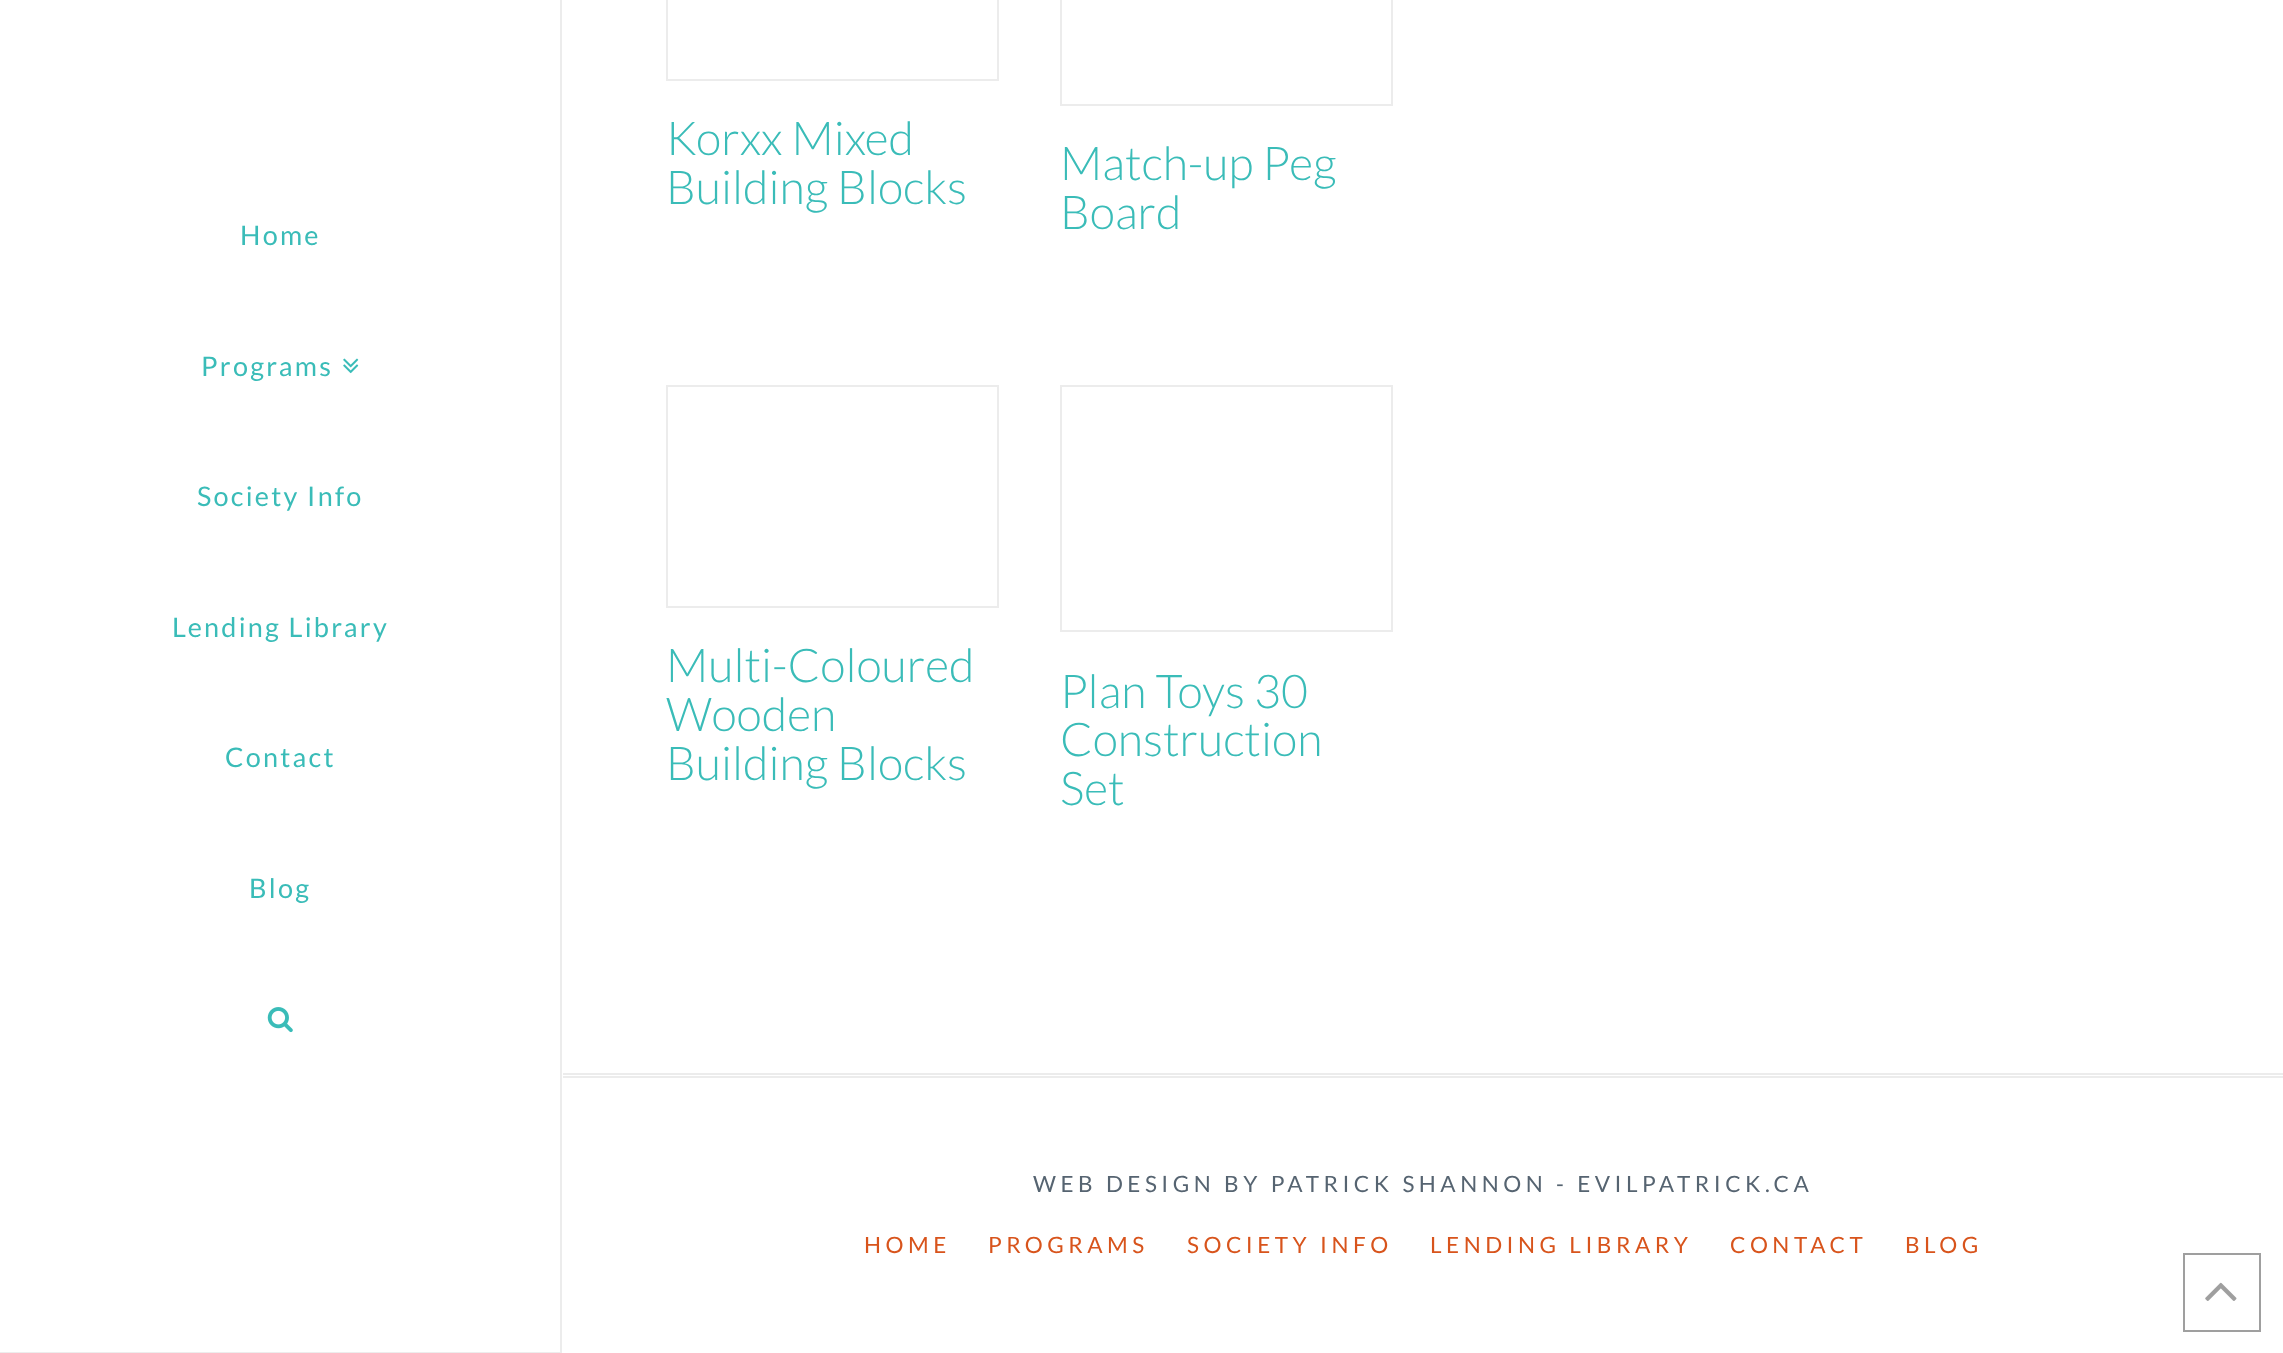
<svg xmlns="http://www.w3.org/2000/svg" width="2283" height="1353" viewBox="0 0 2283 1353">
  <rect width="100%" height="100%" fill="rgb(255,255,255)"/>
  <path d="M562 0V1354L560 1352V0Z" fill="rgb(236,236,236)"/>
  <path d="M562 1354H0V1352H560Z" fill="rgba(0,0,0,0.07)"/>
  <g font-family="Lato" font-size="27" letter-spacing="2.25" fill="rgb(58,188,184)">
    <text x="240" y="245">Home</text>
    <text x="201" y="376">Programs</text>
  </g>
  <image x="343" y="358" width="16" height="16" href="pic1.png"/>
  <g font-family="Lato" font-size="27" letter-spacing="2.25" fill="rgb(58,188,184)">
    <text x="197" y="506">Society Info</text>
    <text x="172" y="637">Lending Library</text>
    <text x="225" y="767">Contact</text>
    <text x="249" y="898">Blog</text>
  </g>
  <image x="267" y="1007" width="26" height="26" href="pic2.png"/>
  <rect x="667" y="-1" width="331" height="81" fill="none" stroke="rgb(236,236,236)" stroke-width="2"/>
  <g font-family="Lato" font-size="46.5" font-weight="300" fill="rgb(58,188,184)">
    <text>
      <tspan x="666" y="155">Korxx Mixed</tspan>
      <tspan x="666" y="204">Building Blocks</tspan>
    </text>
  </g>
  <rect x="1061" y="-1" width="331" height="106" fill="none" stroke="rgb(236,236,236)" stroke-width="2"/>
  <g font-family="Lato" font-size="46.5" font-weight="300" fill="rgb(58,188,184)">
    <text>
      <tspan x="1060" y="180">Match-up Peg</tspan>
      <tspan x="1060" y="229">Board</tspan>
    </text>
  </g>
  <rect x="667" y="386" width="331" height="221" fill="none" stroke="rgb(236,236,236)" stroke-width="2"/>
  <g font-family="Lato" font-size="46.5" font-weight="300" fill="rgb(58,188,184)">
    <text>
      <tspan x="666" y="682">Multi-Coloured</tspan>
      <tspan x="666" y="731">Wooden</tspan>
      <tspan x="666" y="780">Building Blocks</tspan>
    </text>
  </g>
  <rect x="1061" y="386" width="331" height="245" fill="none" stroke="rgb(236,236,236)" stroke-width="2"/>
  <g font-family="Lato" font-size="46.5" font-weight="300" fill="rgb(58,188,184)">
    <text>
      <tspan x="1060" y="708">Plan Toys 30</tspan>
      <tspan x="1060" y="756">Construction</tspan>
      <tspan x="1060" y="805">Set</tspan>
    </text>
  </g>
  <rect x="563" y="1073" width="1720" height="2" fill="rgb(236,236,236)"/>
  <rect x="563" y="1076" width="1720" height="2" fill="rgb(236,236,236)"/>
  <text x="1033" y="1192" font-family="Lato" font-size="22.5" letter-spacing="4.5" fill="rgb(86,100,113)">WEB DESIGN BY PATRICK SHANNON - EVILPATRICK.CA</text>
  <g font-family="Lato" font-size="22.5" letter-spacing="4.5" fill="rgb(216,84,28)">
    <text x="864" y="1253">HOME</text>
    <text x="988" y="1253">PROGRAMS</text>
    <text x="1187" y="1253">SOCIETY INFO</text>
    <text x="1430" y="1253">LENDING LIBRARY</text>
    <text x="1730" y="1253">CONTACT</text>
    <text x="1905" y="1253">BLOG</text>
  </g>
  <rect x="2184" y="1254" width="76" height="77" fill="none" stroke="rgb(159,159,159)" stroke-width="2"/>
  <image x="2205" y="1282" width="32" height="19" href="pic3.png"/>
</svg>
